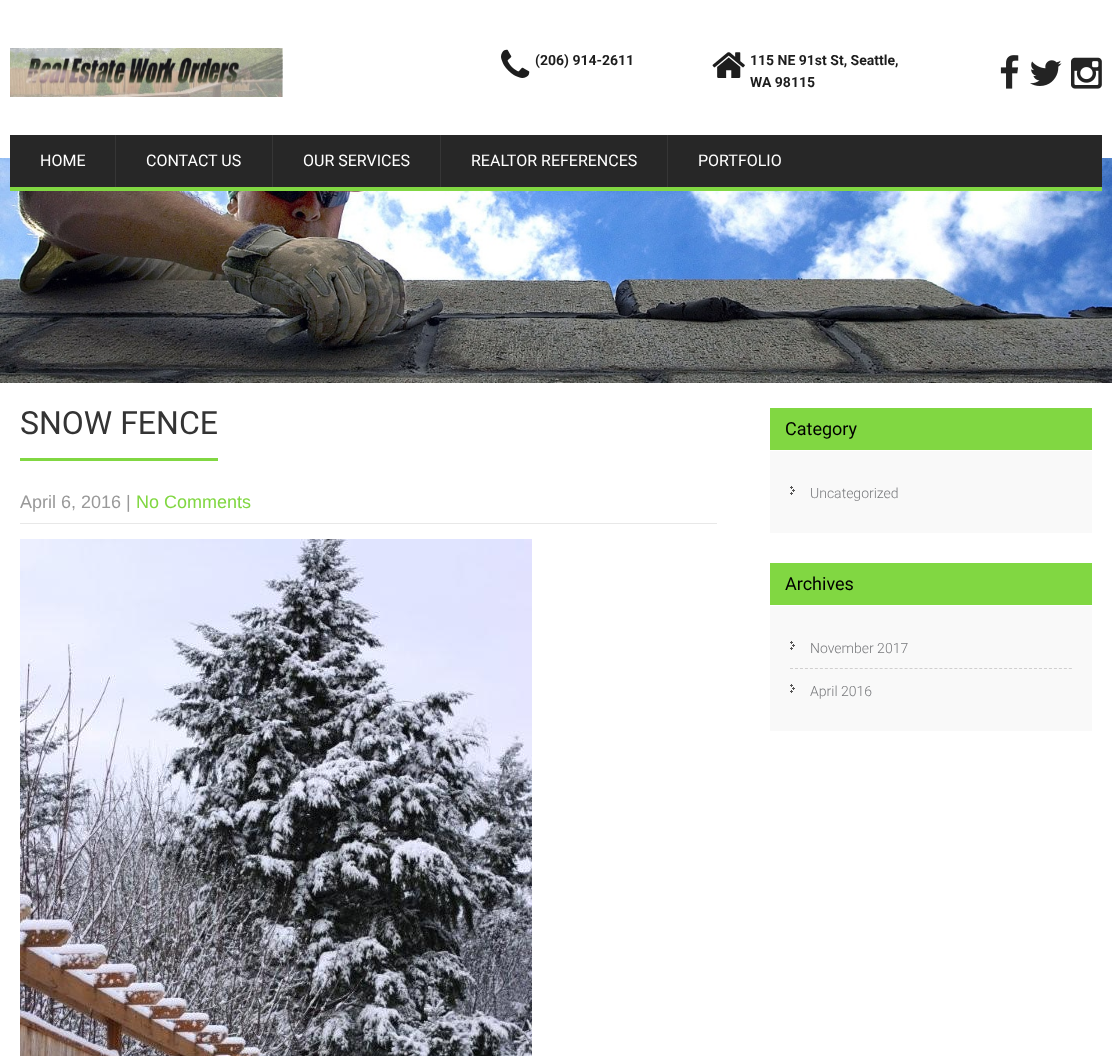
<svg xmlns="http://www.w3.org/2000/svg" width="1112" height="1056" viewBox="0 0 1112 1056">
  <rect width="100%" height="100%" fill="rgb(255,255,255)"/>
  <image x="10" y="48" width="273" height="49" href="pic1.png"/>
  <image x="501" y="49" width="29" height="29" href="pic2.png"/>
  <text x="535" y="65" font-family="Roboto" font-size="14" font-weight="bold" fill="rgb(29,29,29)">(206) 914-2611</text>
  <image x="712" y="52" width="33" height="26" href="pic3.png"/>
  <g font-family="Roboto" font-size="14" font-weight="bold" fill="rgb(29,29,29)">
    <text>
      <tspan x="750" y="65">115 NE 91st St, Seattle,</tspan>
      <tspan x="750" y="87">WA 98115</tspan>
    </text>
  </g>
  <image x="1000" y="55" width="19" height="34" href="pic4.png"/>
  <image x="1030" y="60" width="32" height="26" href="pic5.png"/>
  <image x="1071" y="57" width="31" height="32" href="pic6.png"/>
  <image x="0" y="158" width="1112" height="225" href="pic7.png"/>
  <rect x="10" y="135" width="1092" height="52" fill="rgb(39,39,39)"/>
  <rect x="10" y="187" width="1092" height="4" fill="rgb(129,215,66)"/>
  <rect x="115" y="135" width="1" height="52" fill="rgb(54,54,54)"/>
  <text x="40" y="166" font-family="Roboto" font-size="16" fill="rgb(255,255,255)">HOME</text>
  <rect x="272" y="135" width="1" height="52" fill="rgb(54,54,54)"/>
  <text x="146" y="166" font-family="Roboto" font-size="16" fill="rgb(255,255,255)">CONTACT US</text>
  <rect x="440" y="135" width="1" height="52" fill="rgb(54,54,54)"/>
  <text x="303" y="166" font-family="Roboto" font-size="16" fill="rgb(255,255,255)">OUR SERVICES</text>
  <rect x="667" y="135" width="1" height="52" fill="rgb(54,54,54)"/>
  <g font-family="Roboto" font-size="16" fill="rgb(255,255,255)">
    <text x="471" y="166">REALTOR REFERENCES</text>
    <text x="698" y="166">PORTFOLIO</text>
  </g>
  <rect x="20" y="458" width="198" height="3" fill="rgb(129,215,66)"/>
  <text x="20" y="434" font-family="Roboto" font-size="32" fill="rgb(52,52,52)">SNOW FENCE</text>
  <rect x="20" y="523" width="697" height="1" fill="rgb(232,232,232)"/>
  <text x="20" y="508" font-family="Arimo" font-size="18" fill="rgb(153,153,153)">April 6, 2016 |</text>
  <text x="136" y="508" font-family="Arimo" font-size="18" fill="rgb(129,215,66)">No Comments</text>
  <image x="20" y="539" width="512" height="517" href="pic8.png"/>
  <rect x="770" y="408" width="322" height="42" fill="rgb(129,215,66)"/>
  <text x="785" y="435" font-family="Roboto" font-size="18" fill="rgb(0,0,0)">Category</text>
  <rect x="770" y="451" width="322" height="82" fill="rgb(249,249,249)"/>
  <image x="790" y="486" width="5" height="9" href="pic9.png"/>
  <text x="810" y="498" font-family="Roboto" font-size="14" font-weight="300" fill="rgb(120,121,124)">Uncategorized</text>
  <rect x="770" y="563" width="322" height="42" fill="rgb(129,215,66)"/>
  <text x="785" y="590" font-family="Roboto" font-size="18" fill="rgb(0,0,0)">Archives</text>
  <rect x="770" y="606" width="322" height="125" fill="rgb(249,249,249)"/>
  <image x="790" y="641" width="5" height="9" href="pic9.png"/>
  <path d="M790 668.5H1072" fill="none" stroke="rgb(208,207,207)" stroke-dasharray="3 1.98"/>
  <text x="810" y="653" font-family="Roboto" font-size="14" font-weight="300" fill="rgb(120,121,124)">November 2017</text>
  <image x="790" y="684" width="5" height="9" href="pic9.png"/>
  <text x="810" y="696" font-family="Roboto" font-size="14" font-weight="300" fill="rgb(120,121,124)">April 2016</text>
</svg>
